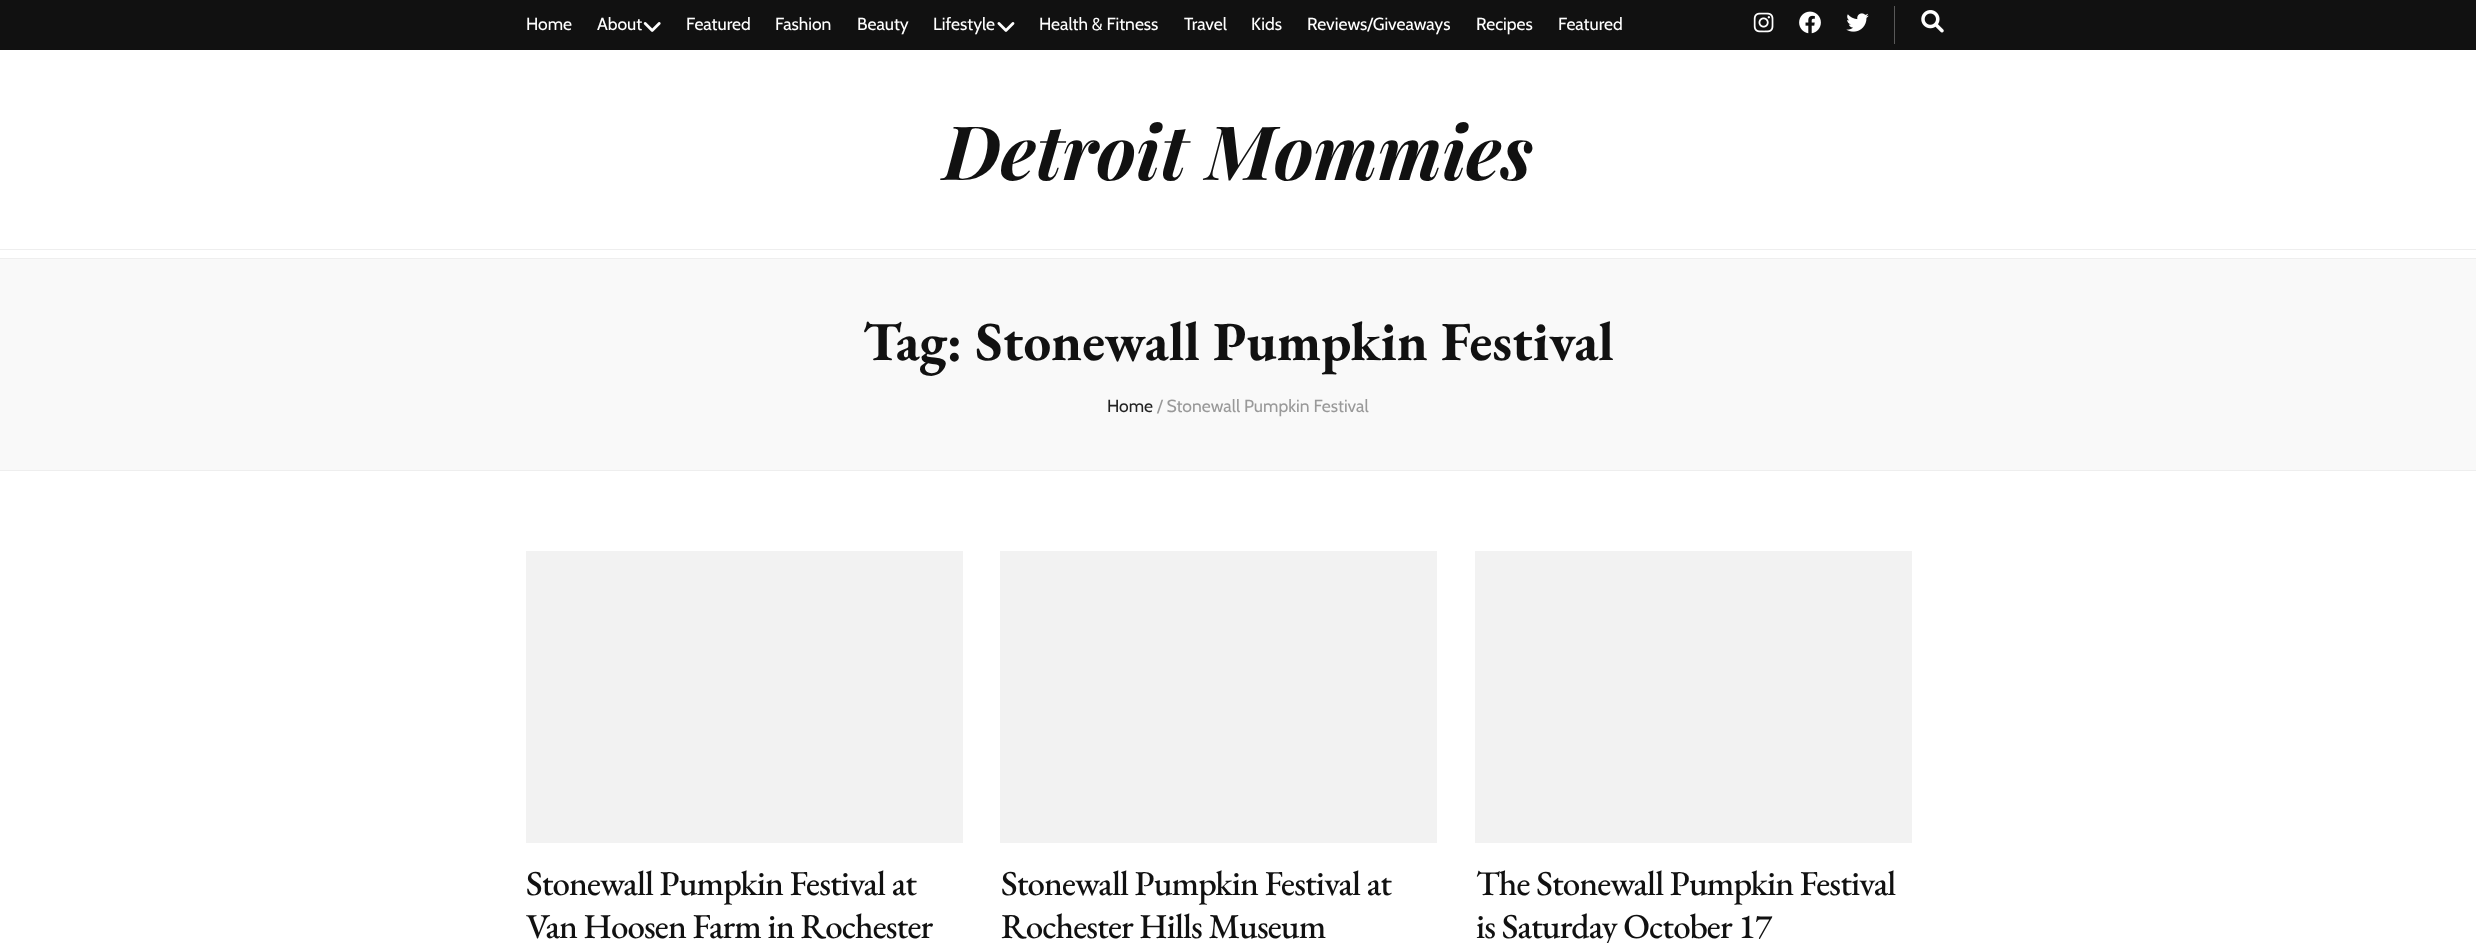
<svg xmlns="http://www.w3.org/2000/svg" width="2476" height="943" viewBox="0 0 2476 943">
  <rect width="100%" height="100%" fill="rgb(255,255,255)"/>
  <rect x="0" y="0" width="2476" height="50" fill="rgb(17,17,17)"/>
  <g font-family="Cabin" font-size="17.5" fill="rgb(255,255,255)">
    <text x="526" y="30">Home</text>
    <text x="597" y="30">About</text>
  </g>
  <image x="643" y="22" width="18" height="10" href="pic1.png"/>
  <g font-family="Cabin" font-size="17.5" fill="rgb(255,255,255)">
    <text x="686" y="30">Featured</text>
    <text x="775" y="30">Fashion</text>
    <text x="857" y="30">Beauty</text>
    <text x="933" y="30">Lifestyle</text>
  </g>
  <image x="997" y="22" width="18" height="10" href="pic2.png"/>
  <g font-family="Cabin" font-size="17.5" fill="rgb(255,255,255)">
    <text x="1039" y="30">Health &amp; Fitness</text>
    <text x="1184" y="30">Travel</text>
    <text x="1251" y="30">Kids</text>
    <text x="1307" y="30">Reviews/Giveaways</text>
    <text x="1476" y="30">Recipes</text>
    <text x="1558" y="30">Featured</text>
  </g>
  <rect x="1894" y="6" width="1" height="38" fill="rgb(89,89,89)"/>
  <image x="1753" y="12" width="21" height="21" href="pic3.png"/>
  <image x="1799" y="11" width="22" height="23" href="pic4.png"/>
  <image x="1846" y="13" width="23" height="19" href="pic5.png"/>
  <image x="1921" y="10" width="23" height="23" href="pic6.png"/>
  <text x="943" y="180" font-family="Playfair Display" font-size="75" font-weight="bold" font-style="italic" fill="rgb(17,17,17)">Detroit Mommies</text>
  <rect x="0" y="249" width="2476" height="1" fill="rgb(238,238,238)"/>
  <rect x="0" y="258" width="2476" height="1" fill="rgb(238,238,238)"/>
  <rect x="0" y="259" width="2476" height="211" fill="rgb(249,249,249)"/>
  <rect x="0" y="470" width="2476" height="1" fill="rgb(238,238,238)"/>
  <text x="863" y="360" font-family="EB Garamond" font-size="55" font-weight="bold" fill="rgb(17,17,17)">Tag: Stonewall Pumpkin Festival</text>
  <text x="1107" y="412" font-family="Cabin" font-size="17.5" fill="rgb(34,34,34)">Home</text>
  <text x="1157" y="412" font-family="Cabin" font-size="17.5" fill="rgb(153,153,153)">/ Stonewall Pumpkin Festival</text>
  <rect x="526" y="551" width="437" height="292" fill="rgb(242,242,242)"/>
  <g font-family="EB Garamond" font-size="35" font-weight="500" letter-spacing="-0.9" fill="rgb(17,17,17)">
    <text>
      <tspan x="526" y="895">Stonewall Pumpkin Festival at</tspan>
      <tspan x="526" y="938">Van Hoosen Farm in Rochester</tspan>
    </text>
  </g>
  <rect x="1000" y="551" width="437" height="292" fill="rgb(242,242,242)"/>
  <g font-family="EB Garamond" font-size="35" font-weight="500" letter-spacing="-0.9" fill="rgb(17,17,17)">
    <text>
      <tspan x="1001" y="895">Stonewall Pumpkin Festival at</tspan>
      <tspan x="1001" y="938">Rochester Hills Museum</tspan>
    </text>
  </g>
  <rect x="1475" y="551" width="437" height="292" fill="rgb(242,242,242)"/>
  <g font-family="EB Garamond" font-size="35" font-weight="500" letter-spacing="-0.9" fill="rgb(17,17,17)">
    <text>
      <tspan x="1476" y="895">The Stonewall Pumpkin Festival</tspan>
      <tspan x="1476" y="938">is Saturday October 17</tspan>
    </text>
  </g>
</svg>
